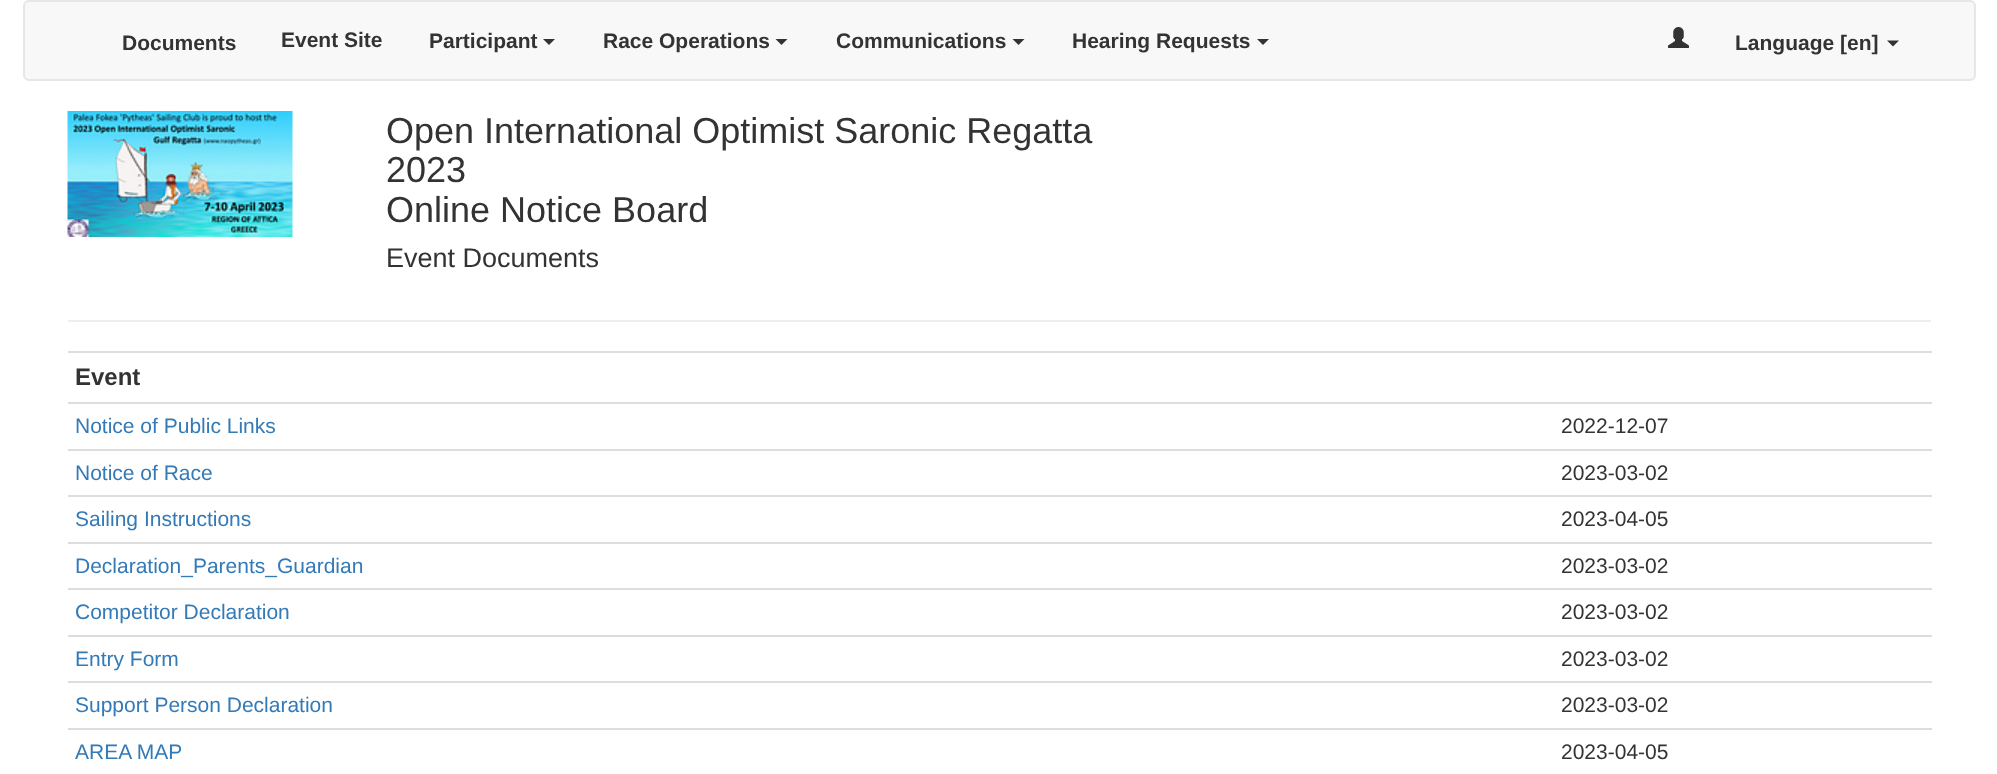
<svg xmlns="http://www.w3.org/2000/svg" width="1997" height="774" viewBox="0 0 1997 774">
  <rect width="100%" height="100%" fill="rgb(255,255,255)"/>
  <rect x="24" y="1" width="1951" height="79" rx="5" fill="rgb(248,248,248)" stroke="rgb(231,231,231)" stroke-width="2"/>
  <g font-family="Liberation Sans" font-size="21" font-weight="bold" fill="rgb(51,51,51)">
    <text x="122" y="50">Documents</text>
    <text x="281" y="47">Event Site</text>
    <text x="429" y="48">Participant</text>
  </g>
  <path d="M543 39H555L549 45Z" fill="rgb(51,51,51)"/>
  <text x="603" y="48" font-family="Liberation Sans" font-size="21" font-weight="bold" fill="rgb(51,51,51)">Race Operations</text>
  <path d="M775.5 39H787.5L781.5 45Z" fill="rgb(51,51,51)"/>
  <text x="836" y="48" font-family="Liberation Sans" font-size="21" font-weight="bold" fill="rgb(51,51,51)">Communications</text>
  <path d="M1012.5 39H1024.5L1018.5 45Z" fill="rgb(51,51,51)"/>
  <text x="1072" y="48" font-family="Liberation Sans" font-size="21" font-weight="bold" fill="rgb(51,51,51)">Hearing Requests</text>
  <path d="M1257 39H1269L1263 45Z" fill="rgb(51,51,51)"/>
  <image x="1668" y="27" width="21" height="21" href="pic1.png"/>
  <text x="1735" y="50" font-family="Liberation Sans" font-size="21" font-weight="bold" fill="rgb(51,51,51)">Language [en]</text>
  <path d="M1887 40.5H1899L1893 46.5Z" fill="rgb(51,51,51)"/>
  <image x="67" y="111" width="226" height="126" href="pic2.png"/>
  <g font-family="Liberation Sans" font-size="36" fill="rgb(51,51,51)">
    <text>
      <tspan x="386" y="143">Open International Optimist Saronic Regatta</tspan>
      <tspan x="386" y="182">2023</tspan>
      <tspan x="386" y="222">Online Notice Board</tspan>
    </text>
  </g>
  <text x="386" y="267" font-family="Liberation Sans" font-size="27" fill="rgb(51,51,51)">Event Documents</text>
  <rect x="68" y="320" width="1863" height="2" fill="rgb(238,238,238)"/>
  <rect x="68" y="351" width="1864" height="2" fill="rgb(221,221,221)"/>
  <text x="75" y="385" font-family="Liberation Sans" font-size="24" font-weight="bold" fill="rgb(51,51,51)">Event</text>
  <text x="75" y="433" font-family="Liberation Sans" font-size="21" fill="rgb(51,122,183)">Notice of Public Links</text>
  <rect x="68" y="402" width="1864" height="2" fill="rgb(221,221,221)"/>
  <text x="1561" y="433" font-family="Liberation Sans" font-size="21" fill="rgb(51,51,51)">2022-12-07</text>
  <text x="75" y="480" font-family="Liberation Sans" font-size="21" fill="rgb(51,122,183)">Notice of Race</text>
  <rect x="68" y="449" width="1864" height="2" fill="rgb(221,221,221)"/>
  <text x="1561" y="480" font-family="Liberation Sans" font-size="21" fill="rgb(51,51,51)">2023-03-02</text>
  <text x="75" y="526" font-family="Liberation Sans" font-size="21" fill="rgb(51,122,183)">Sailing Instructions</text>
  <rect x="68" y="495" width="1864" height="2" fill="rgb(221,221,221)"/>
  <text x="1561" y="526" font-family="Liberation Sans" font-size="21" fill="rgb(51,51,51)">2023-04-05</text>
  <text x="75" y="573" font-family="Liberation Sans" font-size="21" fill="rgb(51,122,183)">Declaration_Parents_Guardian</text>
  <rect x="68" y="542" width="1864" height="2" fill="rgb(221,221,221)"/>
  <text x="1561" y="573" font-family="Liberation Sans" font-size="21" fill="rgb(51,51,51)">2023-03-02</text>
  <text x="75" y="619" font-family="Liberation Sans" font-size="21" fill="rgb(51,122,183)">Competitor Declaration</text>
  <rect x="68" y="588" width="1864" height="2" fill="rgb(221,221,221)"/>
  <text x="1561" y="619" font-family="Liberation Sans" font-size="21" fill="rgb(51,51,51)">2023-03-02</text>
  <text x="75" y="666" font-family="Liberation Sans" font-size="21" fill="rgb(51,122,183)">Entry Form</text>
  <rect x="68" y="635" width="1864" height="2" fill="rgb(221,221,221)"/>
  <text x="1561" y="666" font-family="Liberation Sans" font-size="21" fill="rgb(51,51,51)">2023-03-02</text>
  <text x="75" y="712" font-family="Liberation Sans" font-size="21" fill="rgb(51,122,183)">Support Person Declaration</text>
  <rect x="68" y="681" width="1864" height="2" fill="rgb(221,221,221)"/>
  <text x="1561" y="712" font-family="Liberation Sans" font-size="21" fill="rgb(51,51,51)">2023-03-02</text>
  <text x="75" y="759" font-family="Liberation Sans" font-size="21" fill="rgb(51,122,183)">AREA MAP</text>
  <rect x="68" y="728" width="1864" height="2" fill="rgb(221,221,221)"/>
  <text x="1561" y="759" font-family="Liberation Sans" font-size="21" fill="rgb(51,51,51)">2023-04-05</text>
</svg>
